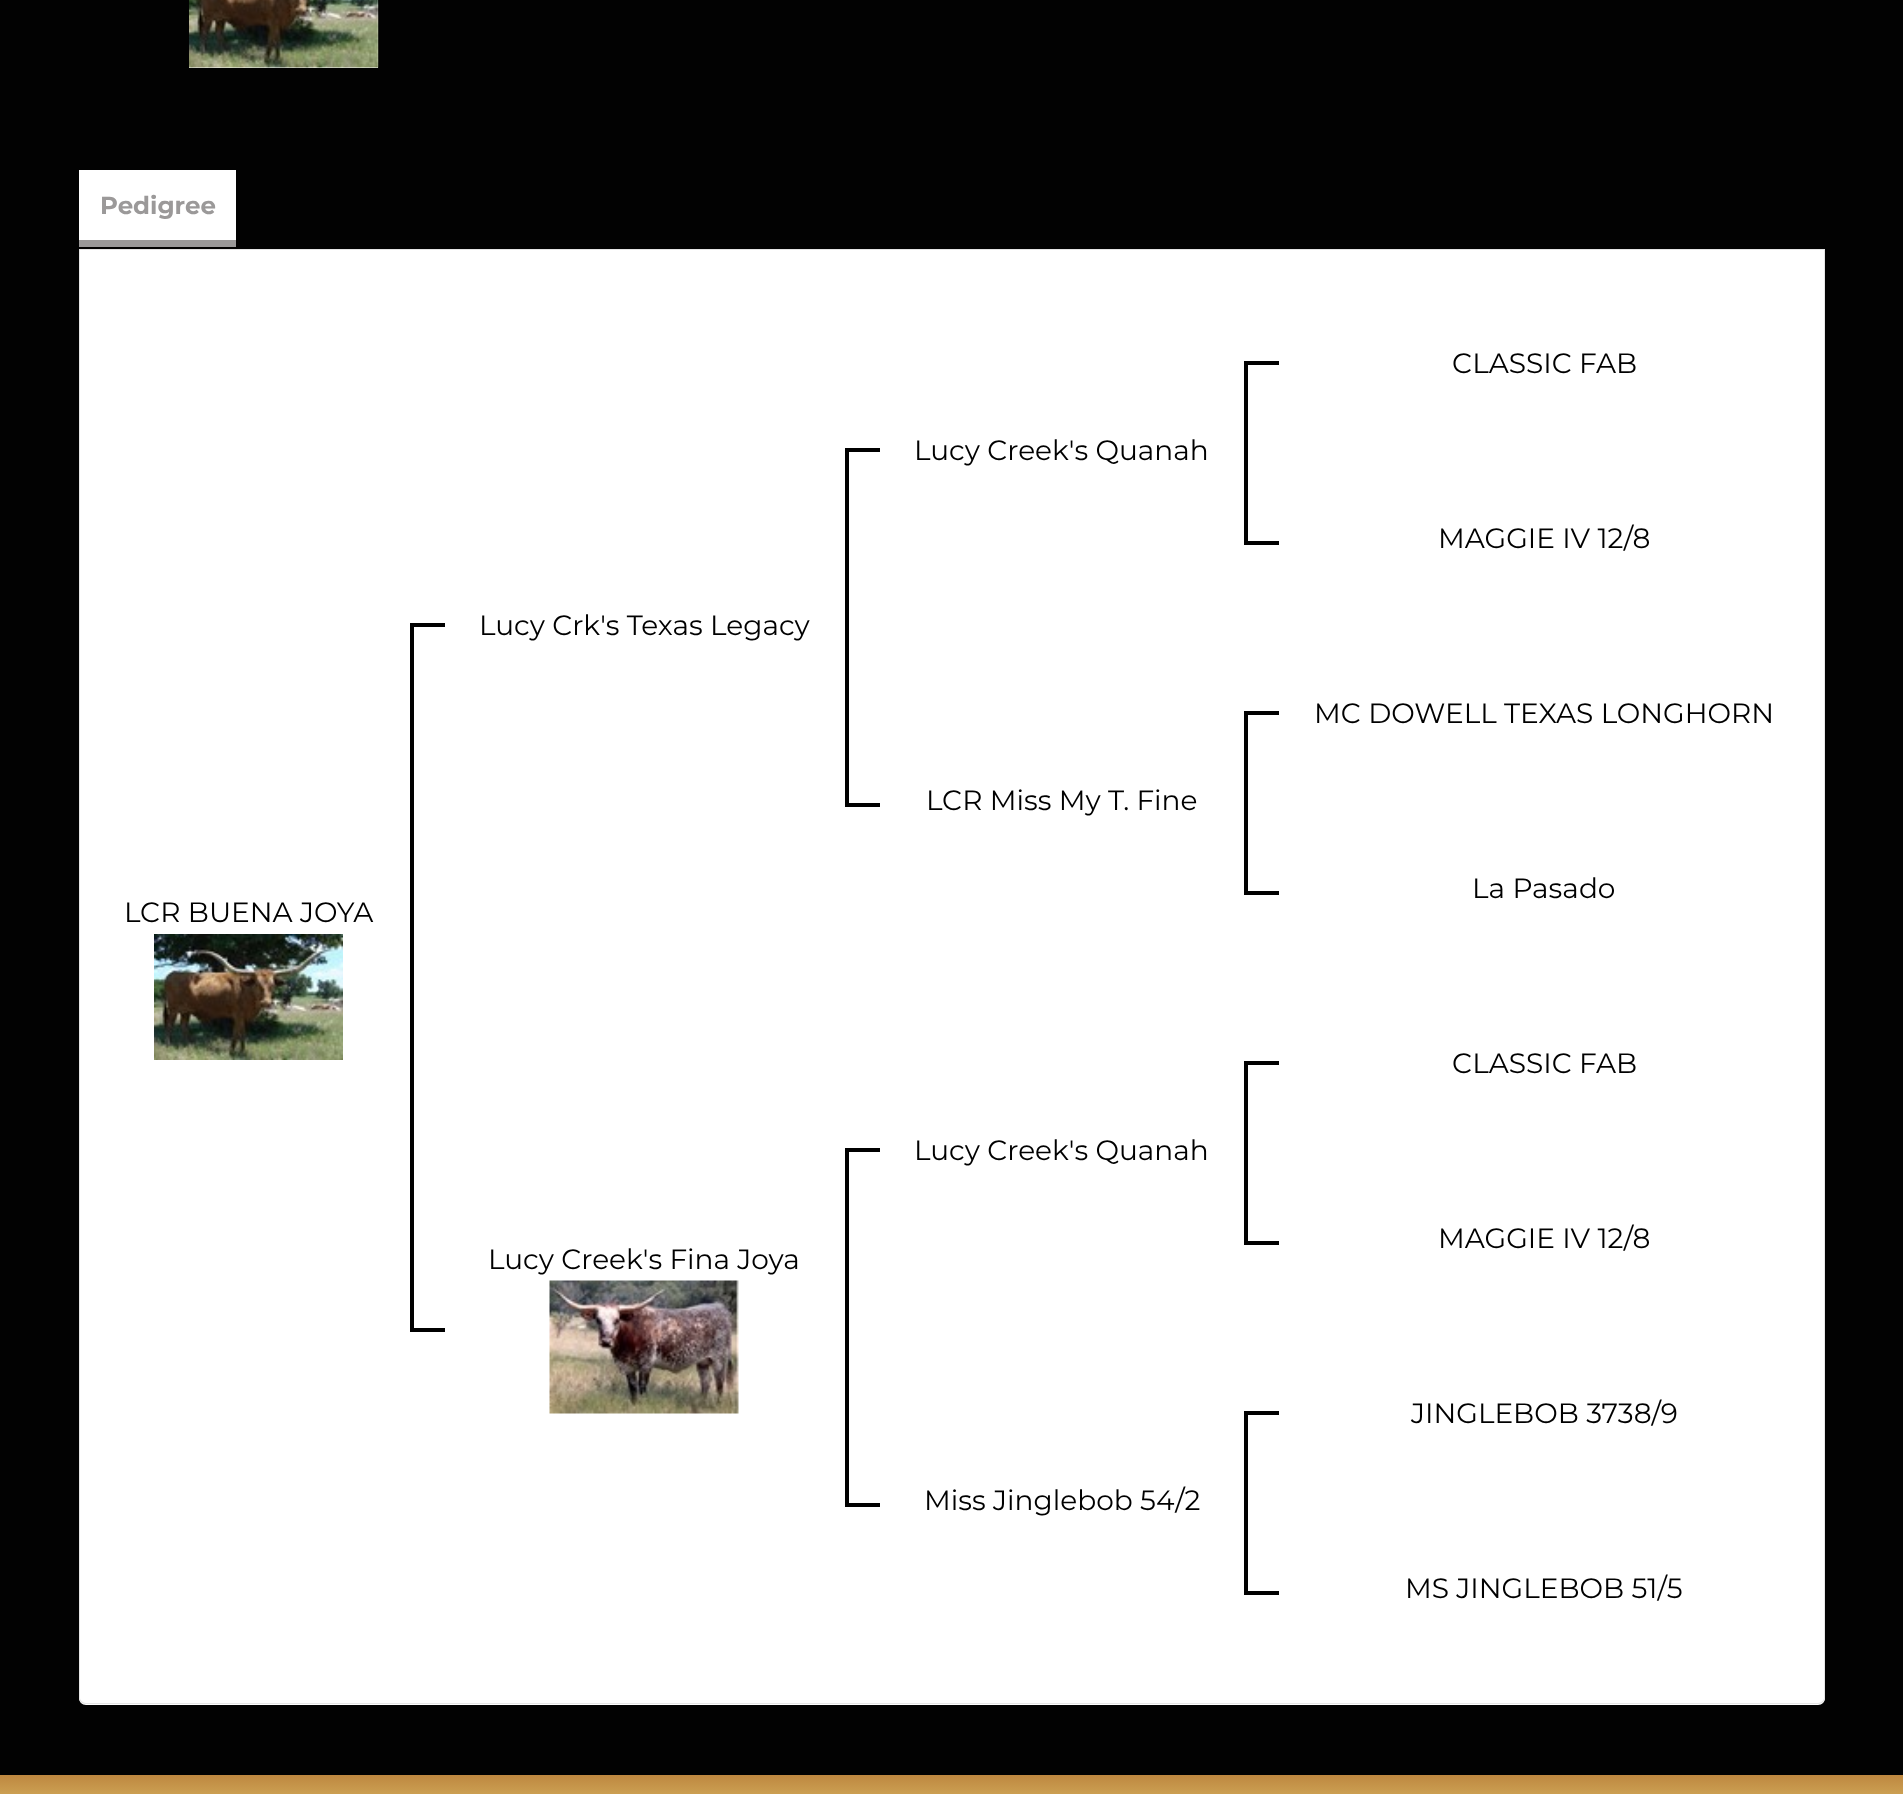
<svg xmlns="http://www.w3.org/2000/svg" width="1903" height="1794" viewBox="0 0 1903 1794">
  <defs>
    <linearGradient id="g1" gradientUnits="userSpaceOnUse" x1="952" y1="1774" x2="952" y2="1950"><stop offset="0" stop-color="rgb(189,134,63)"/><stop offset="0.5" stop-color="rgb(253,244,145)"/><stop offset="1" stop-color="rgb(189,134,63)"/></linearGradient>
  </defs>
  <rect width="100%" height="100%" fill="rgb(2,2,2)"/>
  <rect x="189" y="0" width="189" height="68" fill="rgb(255,255,255)"/>
  <image x="189" y="0" width="190" height="68" href="pic1.png"/>
  <rect x="79" y="249" width="1746" height="1" fill="rgb(229,229,229)"/>
  <rect x="79" y="240" width="157" height="7" fill="rgb(155,153,153)"/>
  <rect x="79" y="170" width="157" height="70" fill="rgb(255,255,255)"/>
  <text x="100" y="214" font-family="Montserrat" font-size="24.5" font-weight="bold" fill="rgb(155,153,153)">Pedigree</text>
  <path d="M79 250H1825V1698C1825 1702 1822 1705 1818 1705H86C82 1705 79 1702 79 1698Z" fill="rgb(255,255,255)"/>
  <path d="M79 250H1825V1698C1825 1701 1822 1704 1818 1704H86C82 1704 79 1701 79 1698ZM80 250H1824V1698C1824 1700 1821 1703 1818 1703H86C83 1703 80 1700 80 1698Z" fill="rgb(229,229,229)" fill-rule="evenodd"/>
  <text x="124" y="922" font-family="Montserrat" font-size="28" fill="rgb(0,0,0)">LCR BUENA JOYA</text>
  <image x="154" y="934" width="189" height="126" href="pic2.png"/>
  <rect x="410" y="623" width="35" height="4" fill="rgb(0,0,0)"/>
  <rect x="410" y="1328" width="35" height="4" fill="rgb(0,0,0)"/>
  <rect x="410" y="623" width="4" height="709" fill="rgb(0,0,0)"/>
  <text x="479" y="635" font-family="Montserrat" font-size="28" fill="rgb(0,0,0)">Lucy Crk's Texas Legacy</text>
  <rect x="845" y="448" width="35" height="4" fill="rgb(0,0,0)"/>
  <rect x="845" y="803" width="35" height="4" fill="rgb(0,0,0)"/>
  <rect x="845" y="448" width="4" height="359" fill="rgb(0,0,0)"/>
  <text x="914" y="460" font-family="Montserrat" font-size="28" fill="rgb(0,0,0)">Lucy Creek's Quanah</text>
  <rect x="1244" y="361" width="35" height="4" fill="rgb(0,0,0)"/>
  <rect x="1244" y="541" width="35" height="4" fill="rgb(0,0,0)"/>
  <rect x="1244" y="361" width="4" height="183" fill="rgb(0,0,0)"/>
  <g font-family="Montserrat" font-size="28" fill="rgb(0,0,0)">
    <text x="1452" y="373">CLASSIC FAB</text>
    <text x="1438" y="548">MAGGIE IV 12/8</text>
    <text x="926" y="810">LCR Miss My T. Fine</text>
  </g>
  <rect x="1244" y="711" width="35" height="4" fill="rgb(0,0,0)"/>
  <rect x="1244" y="891" width="35" height="4" fill="rgb(0,0,0)"/>
  <rect x="1244" y="711" width="4" height="183" fill="rgb(0,0,0)"/>
  <g font-family="Montserrat" font-size="28" fill="rgb(0,0,0)">
    <text x="1314" y="723">MC DOWELL TEXAS LONGHORN</text>
    <text x="1472" y="898">La Pasado</text>
    <text x="488" y="1269">Lucy Creek's Fina Joya</text>
  </g>
  <image x="549" y="1280" width="190" height="134" href="pic3.png"/>
  <rect x="845" y="1148" width="35" height="4" fill="rgb(0,0,0)"/>
  <rect x="845" y="1503" width="35" height="4" fill="rgb(0,0,0)"/>
  <rect x="845" y="1148" width="4" height="359" fill="rgb(0,0,0)"/>
  <text x="914" y="1160" font-family="Montserrat" font-size="28" fill="rgb(0,0,0)">Lucy Creek's Quanah</text>
  <rect x="1244" y="1061" width="35" height="4" fill="rgb(0,0,0)"/>
  <rect x="1244" y="1241" width="35" height="4" fill="rgb(0,0,0)"/>
  <rect x="1244" y="1061" width="4" height="183" fill="rgb(0,0,0)"/>
  <g font-family="Montserrat" font-size="28" fill="rgb(0,0,0)">
    <text x="1452" y="1073">CLASSIC FAB</text>
    <text x="1438" y="1248">MAGGIE IV 12/8</text>
    <text x="924" y="1510">Miss Jinglebob 54/2</text>
  </g>
  <rect x="1244" y="1411" width="35" height="4" fill="rgb(0,0,0)"/>
  <rect x="1244" y="1591" width="35" height="4" fill="rgb(0,0,0)"/>
  <rect x="1244" y="1411" width="4" height="183" fill="rgb(0,0,0)"/>
  <g font-family="Montserrat" font-size="28" fill="rgb(0,0,0)">
    <text x="1411" y="1423">JINGLEBOB 3738/9</text>
    <text x="1405" y="1598">MS JINGLEBOB 51/5</text>
  </g>
  <rect x="0" y="1775" width="1903" height="19" fill="url(#g1)"/>
</svg>
